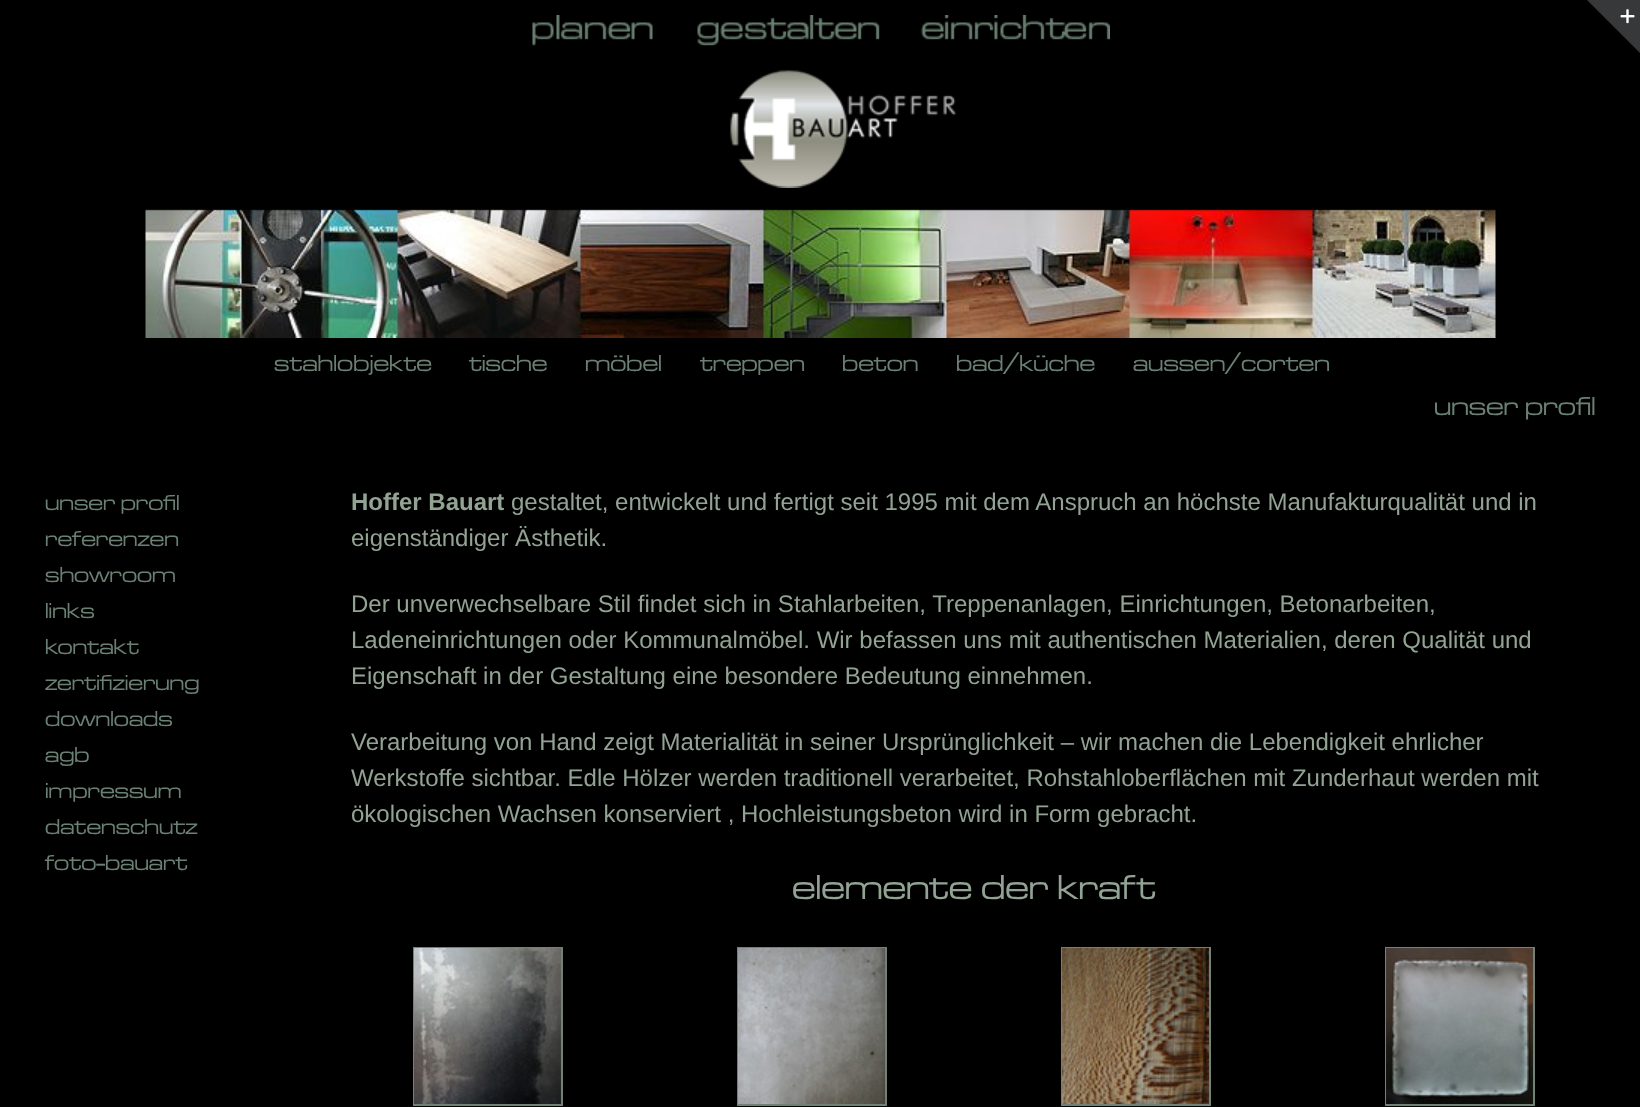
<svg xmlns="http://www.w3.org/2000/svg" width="1640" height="1107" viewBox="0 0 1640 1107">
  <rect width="100%" height="100%" fill="rgb(0,0,0)"/>
  <path d="M1587 0H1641V54Z" fill="rgb(54,56,57)"/>
  <image x="1620" y="9" width="15" height="15" href="pic1.png"/>
  <image x="145" y="209" width="1351" height="129" href="pic2.png"/>
  <image x="532" y="15" width="578" height="173" href="pic3.png"/>
  <path d="M203 338H1397V336C1397 341 1393 345 1388 345H212C207 345 203 341 203 336Z" fill="rgb(0,0,0)"/>
  <g font-family="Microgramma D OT" font-size="24" font-weight="500" fill="rgb(107,128,116)">
    <text x="274" y="371">stahlobjekte</text>
    <text x="469" y="371">tische</text>
    <text x="585" y="371">möbel</text>
    <text x="700" y="371">treppen</text>
    <text x="842" y="371">beton</text>
    <text x="956" y="371">bad/küche</text>
    <text x="1133" y="371">aussen/corten</text>
  </g>
  <text x="1434" y="415" font-family="Microgramma D OT" font-size="27" font-weight="500" fill="rgb(107,128,116)">unser profil</text>
  <g font-family="Microgramma D OT" font-size="22.5" font-weight="500" fill="rgb(107,128,116)">
    <text>
      <tspan x="45" y="510">unser profil</tspan>
      <tspan x="45" y="546">referenzen</tspan>
      <tspan x="45" y="582">showroom</tspan>
      <tspan x="45" y="618">links</tspan>
      <tspan x="45" y="654">kontakt</tspan>
      <tspan x="45" y="690">zertifizierung</tspan>
      <tspan x="45" y="726">downloads</tspan>
      <tspan x="45" y="762">agb</tspan>
      <tspan x="45" y="798">impressum</tspan>
      <tspan x="45" y="834">datenschutz</tspan>
      <tspan x="45" y="870">foto-bauart</tspan>
    </text>
  </g>
  <text x="351" y="510" font-family="Liberation Sans" font-size="24" font-weight="bold" fill="rgb(146,163,148)">Hoffer Bauart</text>
  <g font-family="Liberation Sans" font-size="24" fill="rgb(146,163,148)">
    <text x="511" y="510">gestaltet, entwickelt und fertigt seit 1995 mit dem Anspruch an höchste Manufakturqualität und in</text>
    <text x="351" y="546">eigenständiger Ästhetik.</text>
    <text>
      <tspan x="351" y="612">Der unverwechselbare Stil findet sich in Stahlarbeiten, Treppenanlagen, Einrichtungen, Betonarbeiten,</tspan>
      <tspan x="351" y="648">Ladeneinrichtungen oder Kommunalmöbel. Wir befassen uns mit authentischen Materialien, deren Qualität und</tspan>
      <tspan x="351" y="684">Eigenschaft in der Gestaltung eine besondere Bedeutung einnehmen.</tspan>
    </text>
    <text>
      <tspan x="351" y="750">Verarbeitung von Hand zeigt Materialität in seiner Ursprünglichkeit – wir machen die Lebendigkeit ehrlicher</tspan>
      <tspan x="351" y="786">Werkstoffe sichtbar. Edle Hölzer werden traditionell verarbeitet, Rohstahloberflächen mit Zunderhaut werden mit</tspan>
      <tspan x="351" y="822">ökologischen Wachsen konserviert , Hochleistungsbeton wird in Form gebracht.</tspan>
    </text>
  </g>
  <text x="792" y="899" font-family="Microgramma D OT" font-size="36" font-weight="500" fill="rgb(146,163,148)">elemente der kraft</text>
  <rect x="414" y="948" width="148" height="157" fill="none" stroke="rgb(112,130,118)" stroke-width="2"/>
  <image x="414" y="948" width="147" height="156" href="pic4.png"/>
  <rect x="738" y="948" width="148" height="157" fill="none" stroke="rgb(112,130,118)" stroke-width="2"/>
  <image x="738" y="948" width="147" height="156" href="pic5.png"/>
  <rect x="1062" y="948" width="148" height="157" fill="none" stroke="rgb(112,130,118)" stroke-width="2"/>
  <image x="1062" y="948" width="147" height="156" href="pic6.png"/>
  <rect x="1386" y="948" width="148" height="157" fill="none" stroke="rgb(112,130,118)" stroke-width="2"/>
  <image x="1386" y="948" width="147" height="156" href="pic7.png"/>
</svg>
